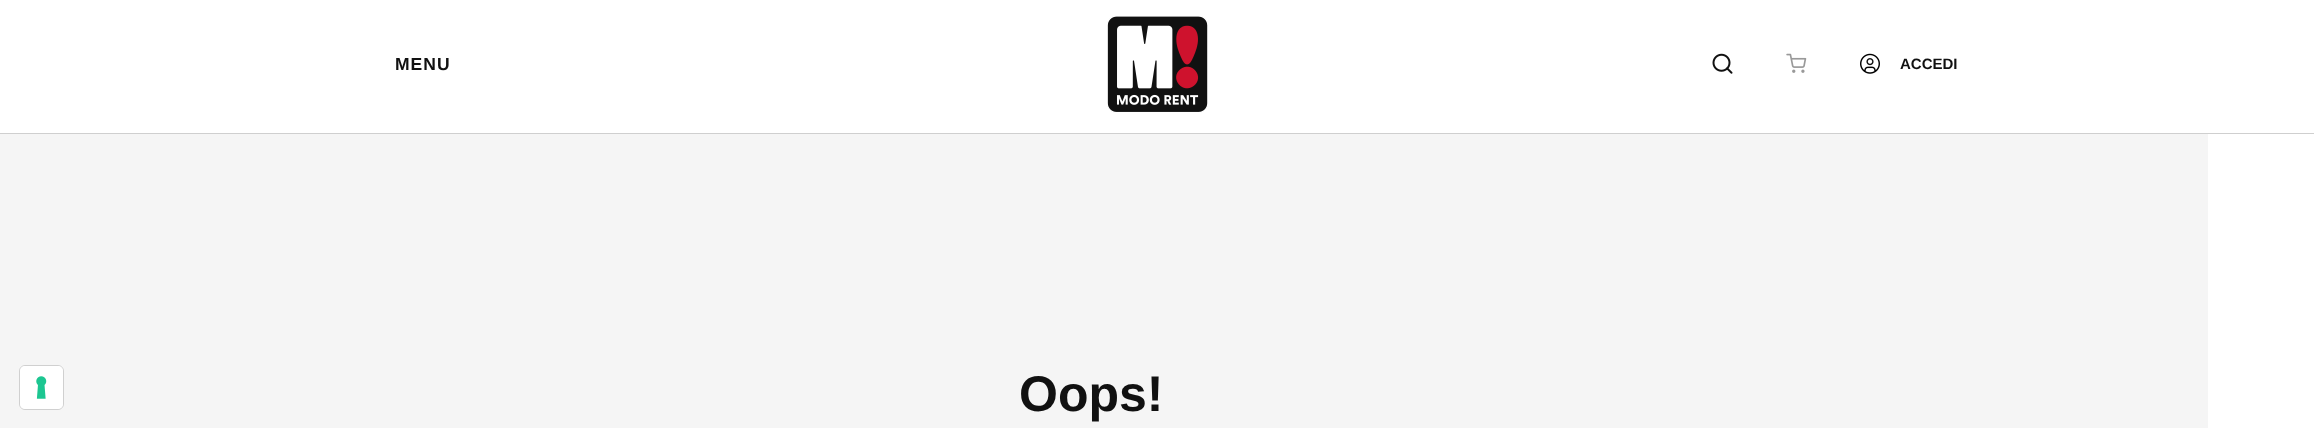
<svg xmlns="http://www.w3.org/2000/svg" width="2314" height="428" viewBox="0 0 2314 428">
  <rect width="100%" height="100%" fill="rgb(255,255,255)"/>
  <rect x="0" y="133" width="2314" height="1" fill="rgb(207,207,207)"/>
  <text x="395" y="70" font-family="Liberation Sans" font-size="17.5" font-weight="bold" letter-spacing="1" fill="rgb(17,17,17)">MENU</text>
  <image x="1107" y="16" width="101" height="97" href="pic1.png"/>
  <image x="1712" y="53" width="21" height="21" href="pic2.png"/>
  <image x="1786" y="53" width="21" height="20" href="pic3.png"/>
  <image x="1860" y="53" width="20" height="21" href="pic4.png"/>
  <text x="1900" y="69" font-family="Liberation Sans" font-size="15" font-weight="bold" fill="rgb(17,17,17)">ACCEDI</text>
  <rect x="0" y="134" width="2208" height="294" fill="rgb(245,245,245)"/>
  <rect x="19.5" y="365.5" width="44" height="44" rx="5.5" fill="none" stroke="rgb(208,208,208)"/>
  <rect x="20" y="366" width="43" height="43" rx="5" fill="rgb(255,255,255)"/>
  <image x="36" y="376" width="11" height="23" href="pic5.png"/>
  <text x="1019" y="411" font-family="Liberation Sans" font-size="50" font-weight="bold" fill="rgb(17,17,17)">Oops!</text>
</svg>
